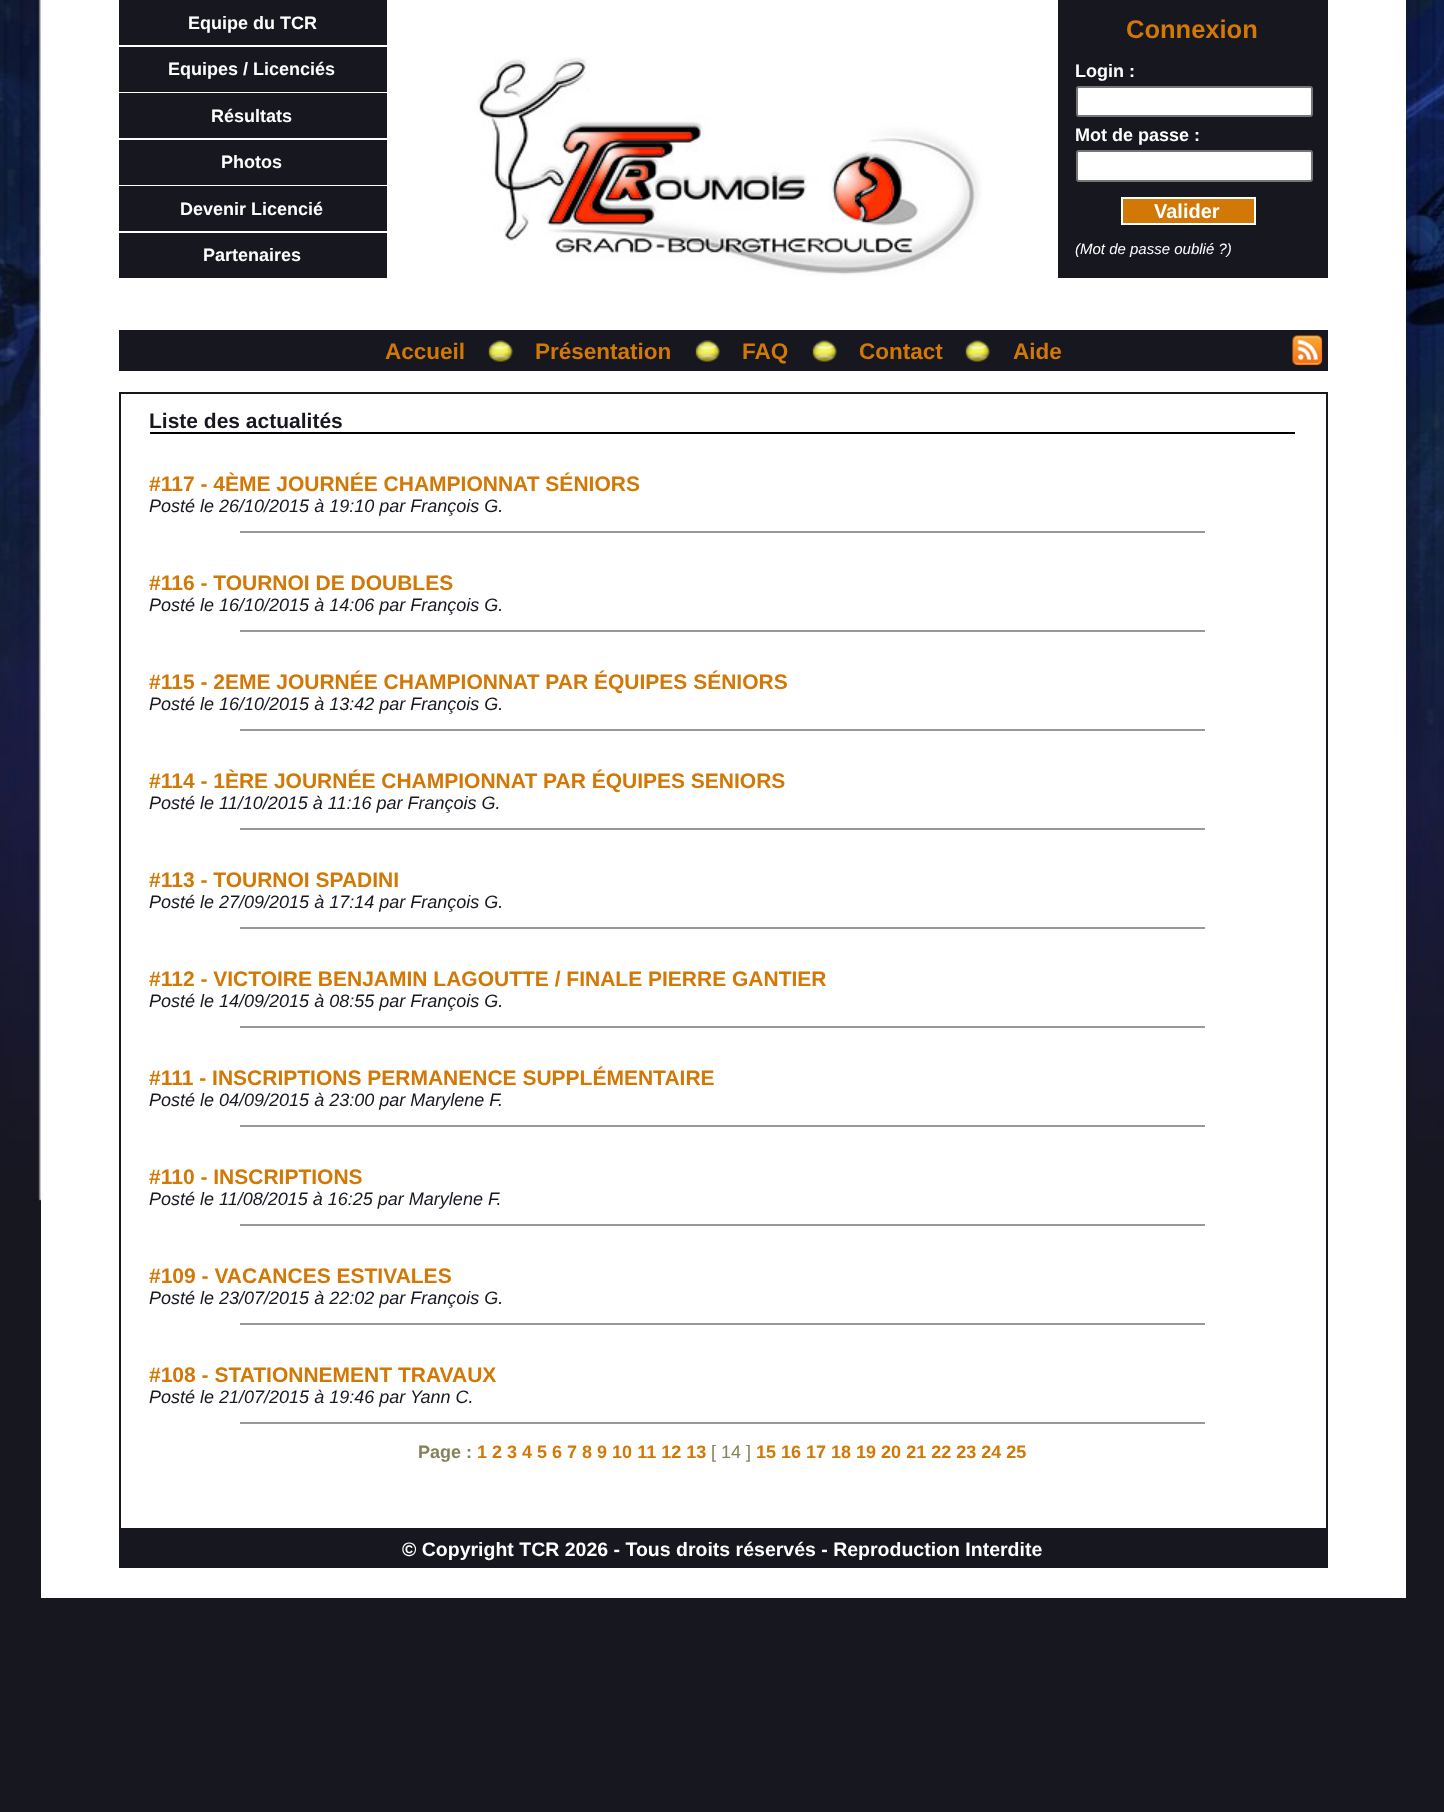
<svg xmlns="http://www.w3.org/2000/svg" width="1444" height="1812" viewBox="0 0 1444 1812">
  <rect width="100%" height="100%" fill="rgb(23,23,32)"/>
  <image x="0" y="0" width="1444" height="1201" href="pic1.png"/>
  <rect x="41" y="0" width="1365" height="1598" fill="rgb(255,255,255)"/>
  <image x="476" y="57" width="506" height="219" href="pic2.png"/>
  <rect x="119" y="0" width="268" height="45" fill="rgb(23,23,32)"/>
  <text x="188" y="29" font-family="Liberation Sans" font-size="18" font-weight="bold" fill="rgb(255,255,255)">Equipe du TCR</text>
  <rect x="119" y="47" width="268" height="45" fill="rgb(23,23,32)"/>
  <text x="168" y="75" font-family="Liberation Sans" font-size="18" font-weight="bold" fill="rgb(255,255,255)">Equipes / Licenciés</text>
  <rect x="119" y="93" width="268" height="45" fill="rgb(23,23,32)"/>
  <text x="211" y="122" font-family="Liberation Sans" font-size="18" font-weight="bold" fill="rgb(255,255,255)">Résultats</text>
  <rect x="119" y="140" width="268" height="45" fill="rgb(23,23,32)"/>
  <text x="221" y="168" font-family="Liberation Sans" font-size="18" font-weight="bold" fill="rgb(255,255,255)">Photos</text>
  <rect x="119" y="186" width="268" height="45" fill="rgb(23,23,32)"/>
  <text x="180" y="215" font-family="Liberation Sans" font-size="18" font-weight="bold" fill="rgb(255,255,255)">Devenir Licencié</text>
  <rect x="119" y="233" width="268" height="45" fill="rgb(23,23,32)"/>
  <text x="203" y="261" font-family="Liberation Sans" font-size="18" font-weight="bold" fill="rgb(255,255,255)">Partenaires</text>
  <rect x="1058" y="0" width="270" height="278" fill="rgb(23,23,32)"/>
  <text x="1126" y="38" font-family="Liberation Sans" font-size="25.5" font-weight="bold" fill="rgb(209,120,6)">Connexion</text>
  <text x="1075" y="77" font-family="Liberation Sans" font-size="18" font-weight="bold" fill="rgb(255,255,255)">Login :</text>
  <rect x="1077" y="87" width="235" height="29" rx="2" fill="rgb(255,255,255)" stroke="rgb(118,118,118)" stroke-width="2"/>
  <text x="1075" y="141" font-family="Liberation Sans" font-size="18" font-weight="bold" fill="rgb(255,255,255)">Mot de passe :</text>
  <rect x="1077" y="151" width="235" height="30" rx="2" fill="rgb(255,255,255)" stroke="rgb(118,118,118)" stroke-width="2"/>
  <rect x="1122" y="198" width="133" height="26" fill="rgb(209,120,6)" stroke="rgb(255,255,255)" stroke-width="2"/>
  <text x="1154" y="218" font-family="Liberation Sans" font-size="20" font-weight="bold" fill="rgb(255,255,255)">Valider</text>
  <text x="1075" y="254" font-family="Liberation Sans" font-size="15" font-style="italic" fill="rgb(255,255,255)">(Mot de passe oublié ?)</text>
  <rect x="119" y="330" width="1209" height="41" fill="rgb(23,23,32)"/>
  <text x="385" y="359" font-family="Liberation Sans" font-size="22.5" font-weight="bold" fill="rgb(209,120,6)">Accueil</text>
  <image x="488" y="340" width="25" height="23" href="pic3.png"/>
  <text x="535" y="359" font-family="Liberation Sans" font-size="22.5" font-weight="bold" fill="rgb(209,120,6)">Présentation</text>
  <image x="695" y="340" width="25" height="23" href="pic4.png"/>
  <text x="742" y="359" font-family="Liberation Sans" font-size="22.5" font-weight="bold" fill="rgb(209,120,6)">FAQ</text>
  <image x="812" y="340" width="25" height="23" href="pic3.png"/>
  <text x="859" y="359" font-family="Liberation Sans" font-size="22.5" font-weight="bold" fill="rgb(209,120,6)">Contact</text>
  <image x="965" y="340" width="25" height="23" href="pic3.png"/>
  <text x="1013" y="359" font-family="Liberation Sans" font-size="22.5" font-weight="bold" fill="rgb(209,120,6)">Aide</text>
  <image x="1292" y="335" width="31" height="31" href="pic5.png"/>
  <rect x="120" y="393" width="1207" height="1136" fill="none" stroke="rgb(23,23,32)" stroke-width="2"/>
  <rect x="150" y="432" width="1145" height="2" fill="rgb(0,0,0)"/>
  <text x="149" y="428" font-family="Liberation Sans" font-size="21" font-weight="bold" fill="rgb(23,23,32)">Liste des actualités</text>
  <text x="149" y="491" font-family="Liberation Sans" font-size="21" font-weight="bold" fill="rgb(209,120,6)">#117 - 4ÈME JOURNÉE CHAMPIONNAT SÉNIORS</text>
  <text x="149" y="512" font-family="Liberation Sans" font-size="18" font-style="italic" fill="rgb(23,23,32)">Posté le 26/10/2015 à 19:10 par François G.</text>
  <rect x="240" y="531" width="965" height="2" fill="rgb(152,152,152)"/>
  <text x="149" y="590" font-family="Liberation Sans" font-size="21" font-weight="bold" fill="rgb(209,120,6)">#116 - TOURNOI DE DOUBLES</text>
  <text x="149" y="611" font-family="Liberation Sans" font-size="18" font-style="italic" fill="rgb(23,23,32)">Posté le 16/10/2015 à 14:06 par François G.</text>
  <rect x="240" y="630" width="965" height="2" fill="rgb(152,152,152)"/>
  <text x="149" y="689" font-family="Liberation Sans" font-size="21" font-weight="bold" fill="rgb(209,120,6)">#115 - 2EME JOURNÉE CHAMPIONNAT PAR ÉQUIPES SÉNIORS</text>
  <text x="149" y="710" font-family="Liberation Sans" font-size="18" font-style="italic" fill="rgb(23,23,32)">Posté le 16/10/2015 à 13:42 par François G.</text>
  <rect x="240" y="729" width="965" height="2" fill="rgb(152,152,152)"/>
  <text x="149" y="788" font-family="Liberation Sans" font-size="21" font-weight="bold" fill="rgb(209,120,6)">#114 - 1ÈRE JOURNÉE CHAMPIONNAT PAR ÉQUIPES SENIORS</text>
  <text x="149" y="809" font-family="Liberation Sans" font-size="18" font-style="italic" fill="rgb(23,23,32)">Posté le 11/10/2015 à 11:16 par François G.</text>
  <rect x="240" y="828" width="965" height="2" fill="rgb(152,152,152)"/>
  <text x="149" y="887" font-family="Liberation Sans" font-size="21" font-weight="bold" fill="rgb(209,120,6)">#113 - TOURNOI SPADINI</text>
  <text x="149" y="908" font-family="Liberation Sans" font-size="18" font-style="italic" fill="rgb(23,23,32)">Posté le 27/09/2015 à 17:14 par François G.</text>
  <rect x="240" y="927" width="965" height="2" fill="rgb(152,152,152)"/>
  <text x="149" y="986" font-family="Liberation Sans" font-size="21" font-weight="bold" fill="rgb(209,120,6)">#112 - VICTOIRE BENJAMIN LAGOUTTE / FINALE PIERRE GANTIER</text>
  <text x="149" y="1007" font-family="Liberation Sans" font-size="18" font-style="italic" fill="rgb(23,23,32)">Posté le 14/09/2015 à 08:55 par François G.</text>
  <rect x="240" y="1026" width="965" height="2" fill="rgb(152,152,152)"/>
  <text x="149" y="1085" font-family="Liberation Sans" font-size="21" font-weight="bold" fill="rgb(209,120,6)">#111 - INSCRIPTIONS PERMANENCE SUPPLÉMENTAIRE</text>
  <text x="149" y="1106" font-family="Liberation Sans" font-size="18" font-style="italic" fill="rgb(23,23,32)">Posté le 04/09/2015 à 23:00 par Marylene F.</text>
  <rect x="240" y="1125" width="965" height="2" fill="rgb(152,152,152)"/>
  <text x="149" y="1184" font-family="Liberation Sans" font-size="21" font-weight="bold" fill="rgb(209,120,6)">#110 - INSCRIPTIONS</text>
  <text x="149" y="1205" font-family="Liberation Sans" font-size="18" font-style="italic" fill="rgb(23,23,32)">Posté le 11/08/2015 à 16:25 par Marylene F.</text>
  <rect x="240" y="1224" width="965" height="2" fill="rgb(152,152,152)"/>
  <text x="149" y="1283" font-family="Liberation Sans" font-size="21" font-weight="bold" fill="rgb(209,120,6)">#109 - VACANCES ESTIVALES</text>
  <text x="149" y="1304" font-family="Liberation Sans" font-size="18" font-style="italic" fill="rgb(23,23,32)">Posté le 23/07/2015 à 22:02 par François G.</text>
  <rect x="240" y="1323" width="965" height="2" fill="rgb(152,152,152)"/>
  <text x="149" y="1382" font-family="Liberation Sans" font-size="21" font-weight="bold" fill="rgb(209,120,6)">#108 - STATIONNEMENT TRAVAUX</text>
  <text x="149" y="1403" font-family="Liberation Sans" font-size="18" font-style="italic" fill="rgb(23,23,32)">Posté le 21/07/2015 à 19:46 par Yann C.</text>
  <rect x="240" y="1422" width="965" height="2" fill="rgb(152,152,152)"/>
  <text x="418" y="1458" font-family="Liberation Sans" font-size="18" font-weight="bold" fill="rgb(132,129,91)">Page :</text>
  <text x="477" y="1458" font-family="Liberation Sans" font-size="18" font-weight="bold" fill="rgb(209,120,6)">1 2 3 4 5 6 7 8 9 10 11 12 13</text>
  <text x="711" y="1458" font-family="Liberation Sans" font-size="18" fill="rgb(132,129,91)">[ 14 ]</text>
  <text x="756" y="1458" font-family="Liberation Sans" font-size="18" font-weight="bold" fill="rgb(209,120,6)">15 16 17 18 19 20 21 22 23 24 25</text>
  <rect x="119" y="1530" width="1209" height="38" fill="rgb(23,23,32)"/>
  <text x="402" y="1556" font-family="Liberation Sans" font-size="19.5" font-weight="bold" fill="rgb(255,255,255)">© Copyright TCR 2026 - Tous droits réservés - Reproduction Interdite</text>
</svg>
